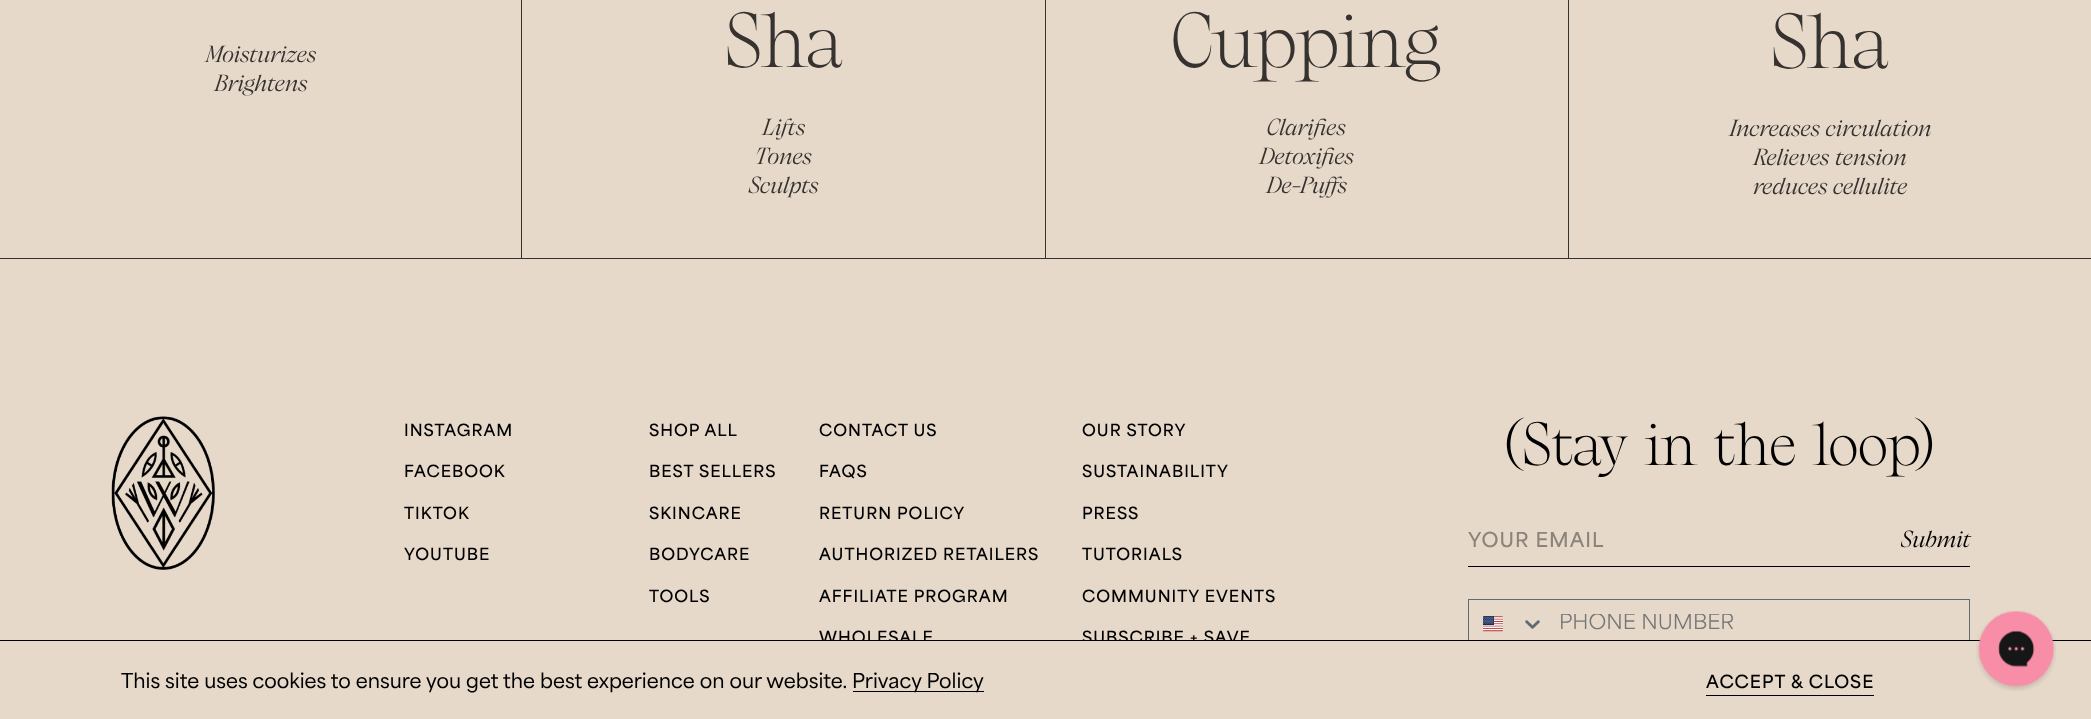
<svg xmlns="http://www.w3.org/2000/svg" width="2091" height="719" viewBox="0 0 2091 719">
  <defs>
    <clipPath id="clip1"><rect x="1559" y="614" width="410" height="20"/></clipPath>
  </defs>
  <rect width="100%" height="100%" fill="rgb(230,217,202)"/>
  <rect x="0" y="258" width="2091" height="1" fill="rgb(53,50,47)"/>
  <rect x="521" y="0" width="1" height="258" fill="rgb(53,50,47)"/>
  <g font-family="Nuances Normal" font-size="21.75" font-style="italic" fill="rgb(53,50,47)">
    <text x="205" y="62">Moisturizes</text>
    <text x="214" y="91">Brightens</text>
  </g>
  <rect x="1045" y="0" width="1" height="258" fill="rgb(53,50,47)"/>
  <text x="725" y="67" font-family="Nuances Normal" font-size="72.5" font-weight="300" letter-spacing="-1" fill="rgb(53,50,47)">Sha</text>
  <g font-family="Nuances Normal" font-size="21.75" font-style="italic" fill="rgb(53,50,47)">
    <text x="762" y="135">Lifts</text>
    <text x="755" y="164">Tones</text>
    <text x="749" y="193">Sculpts</text>
  </g>
  <rect x="1568" y="0" width="1" height="258" fill="rgb(53,50,47)"/>
  <text x="1172" y="67" font-family="Nuances Normal" font-size="72.5" font-weight="300" letter-spacing="-1" fill="rgb(53,50,47)">Cupping</text>
  <g font-family="Nuances Normal" font-size="21.75" font-style="italic" fill="rgb(53,50,47)">
    <text x="1267" y="135">Clarifies</text>
    <text x="1259" y="164">Detoxifies</text>
    <text x="1266" y="193">De-Puffs</text>
  </g>
  <text x="1771" y="68" font-family="Nuances Normal" font-size="72.5" font-weight="300" letter-spacing="-1" fill="rgb(53,50,47)">Sha</text>
  <g font-family="Nuances Normal" font-size="21.75" font-style="italic" fill="rgb(53,50,47)">
    <text x="1729" y="136">Increases circulation</text>
    <text>
      <tspan x="1753" y="165">Relieves tension</tspan>
      <tspan x="1753" y="194">reduces cellulite</tspan>
    </text>
  </g>
  <image x="111" y="416" width="104" height="154" href="pic1.png"/>
  <g font-family="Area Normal" font-size="15.75" font-weight="bold" letter-spacing="1" fill="rgb(0,0,0)">
    <text x="404" y="436">INSTAGRAM</text>
    <text x="404" y="477">FACEBOOK</text>
    <text x="404" y="519">TIKTOK</text>
    <text x="404" y="560">YOUTUBE</text>
    <text x="649" y="436">SHOP ALL</text>
    <text x="649" y="477">BEST SELLERS</text>
    <text x="649" y="519">SKINCARE</text>
    <text x="649" y="560">BODYCARE</text>
    <text x="649" y="602">TOOLS</text>
    <text x="819" y="436">CONTACT US</text>
    <text x="819" y="477">FAQS</text>
    <text x="819" y="519">RETURN POLICY</text>
    <text x="819" y="560">AUTHORIZED RETAILERS</text>
    <text x="819" y="602">AFFILIATE PROGRAM</text>
    <text x="819" y="643">WHOLESALE</text>
    <text x="1082" y="436">OUR STORY</text>
    <text x="1082" y="477">SUSTAINABILITY</text>
    <text x="1082" y="519">PRESS</text>
    <text x="1082" y="560">TUTORIALS</text>
    <text x="1082" y="602">COMMUNITY EVENTS</text>
    <text x="1082" y="643">SUBSCRIBE + SAVE</text>
  </g>
  <text x="1505" y="465" font-family="Nuances Normal" font-size="57" font-weight="300" letter-spacing="-1" fill="rgb(0,0,0)">(Stay in the loop)</text>
  <rect x="1468" y="566" width="502" height="1" fill="rgb(0,0,0)"/>
  <text x="1901" y="547" font-family="Nuances Normal" font-size="21.75" font-style="italic" fill="rgb(0,0,0)">Submit</text>
  <rect x="1900" y="543" width="1" height="4" fill="rgb(230,217,202)"/>
  <text x="1468" y="547" font-family="Area Normal" font-size="19.35" font-weight="bold" letter-spacing="1" fill="rgb(140,132,123)">YOUR EMAIL</text>
  <rect x="1468.5" y="599.5" width="501" height="49" fill="none" stroke="rgb(96,106,114)"/>
  <image x="1483" y="616" width="20" height="16" href="pic2.png"/>
  <image x="1525" y="620" width="15" height="9" href="pic3.png"/>
  <g clip-path="url(#clip1)">
    <text x="1559" y="629" font-family="Area Normal" font-size="20" fill="rgb(118,118,118)">PHONE NUMBER</text>
  </g>
  <rect x="0" y="640" width="2091" height="1" fill="rgb(0,0,0)"/>
  <image x="1976" y="610" width="80" height="81" href="pic4.png"/>
  <rect x="822" y="641" width="1148" height="8" fill="rgb(230,217,202)"/>
  <text x="121" y="688" font-family="Area Normal" font-size="19.35" font-weight="600" fill="rgb(0,0,0)">This site uses cookies to ensure you get the best experience on our website.</text>
  <rect x="853" y="691" width="131" height="1" fill="rgb(0,0,0)"/>
  <text x="852" y="688" font-family="Area Normal" font-size="19.35" font-weight="600" fill="rgb(0,0,0)">Privacy Policy</text>
  <text x="1706" y="688" font-family="Area Normal" font-size="17" font-weight="bold" letter-spacing="1" fill="rgb(0,0,0)">ACCEPT &amp; CLOSE</text>
  <rect x="1706" y="695" width="168" height="1" fill="rgb(0,0,0)"/>
</svg>
